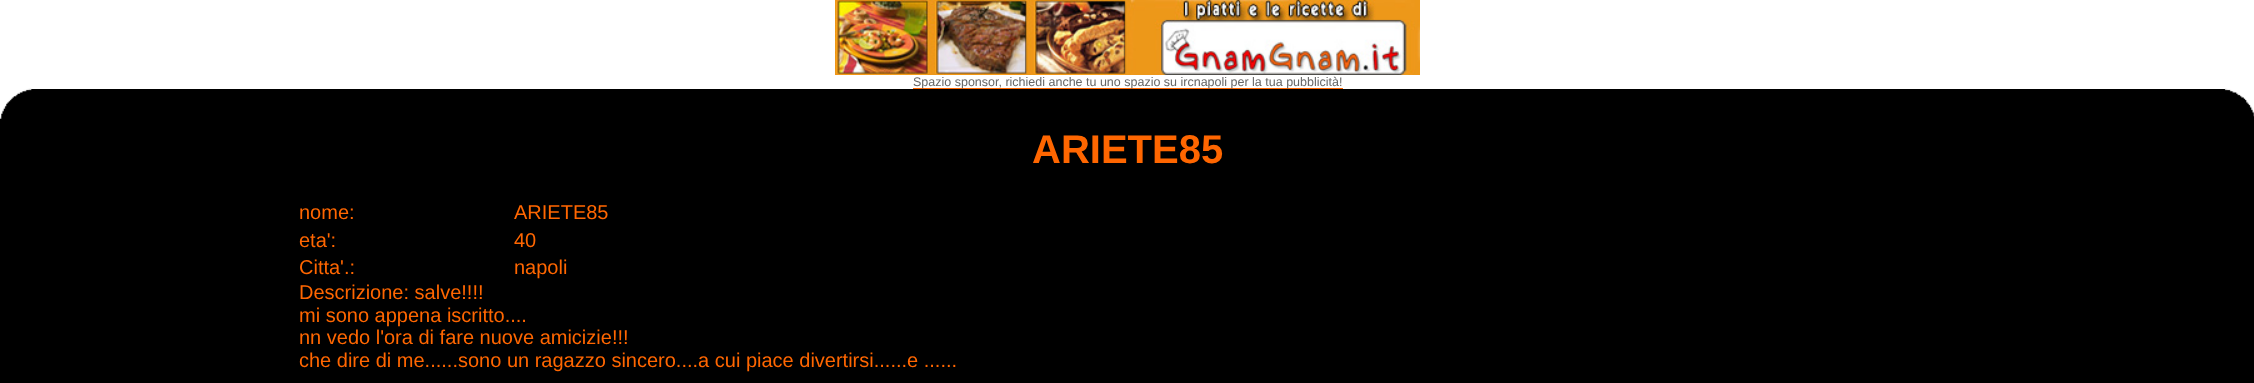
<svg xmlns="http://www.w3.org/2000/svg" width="2254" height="383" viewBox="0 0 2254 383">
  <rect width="100%" height="100%" fill="rgb(0,0,0)"/>
  <rect x="0" y="0" width="2254" height="89" fill="rgb(255,255,255)"/>
  <image x="835" y="0" width="585" height="75" href="pic1.png"/>
  <rect x="913" y="88" width="430" height="1" fill="rgb(255,102,0)"/>
  <text x="913" y="86" font-family="Liberation Sans" font-size="12.5" fill="rgb(102,102,102)">Spazio sponsor, richiedi anche tu uno spazio su ircnapoli per la tua pubblicità!</text>
  <image x="0" y="88" width="32" height="31" href="pic2.png"/>
  <image x="2224" y="88" width="30" height="29" href="pic3.png"/>
  <text x="1032" y="163" font-family="Liberation Sans" font-size="40" font-weight="bold" fill="rgb(255,102,0)">ARIETE85</text>
  <g font-family="Liberation Sans" font-size="20" fill="rgb(255,102,0)">
    <text x="299" y="219">nome:</text>
    <text x="514" y="219">ARIETE85</text>
    <text x="299" y="247">eta':</text>
    <text x="514" y="247">40</text>
    <text x="299" y="274">Citta'.:</text>
    <text x="514" y="274">napoli</text>
    <text>
      <tspan x="299" y="299">Descrizione: salve!!!!</tspan>
      <tspan x="299" y="322">mi sono appena iscritto....</tspan>
      <tspan x="299" y="344">nn vedo l'ora di fare nuove amicizie!!!</tspan>
      <tspan x="299" y="367">che dire di me......sono un ragazzo sincero....a cui piace divertirsi......e ......</tspan>
    </text>
  </g>
</svg>
